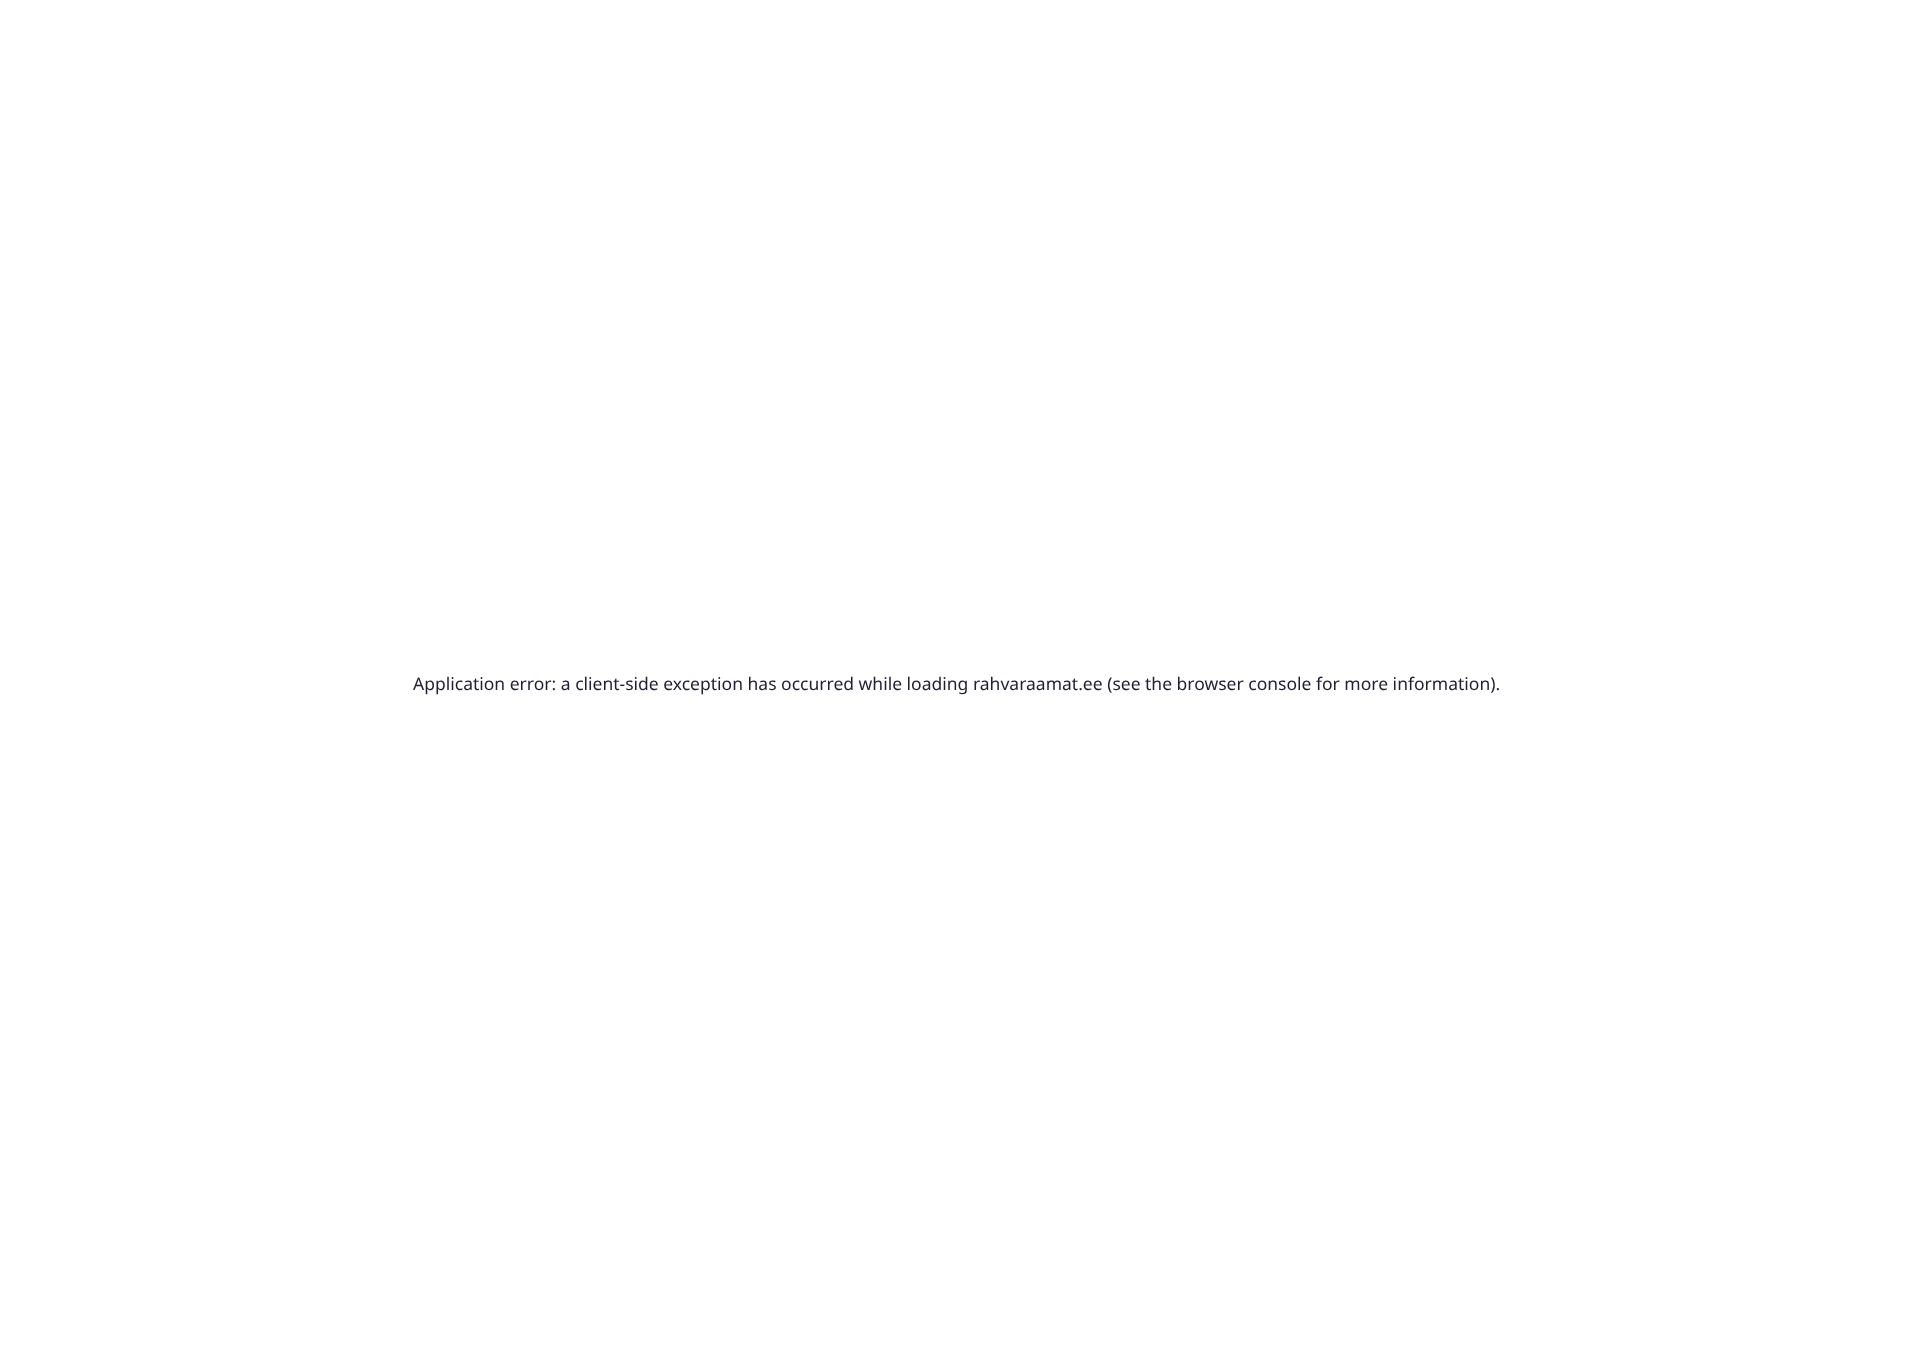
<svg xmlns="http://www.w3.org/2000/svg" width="1913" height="1367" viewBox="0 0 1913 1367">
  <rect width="100%" height="100%" fill="rgb(255,255,255)"/>
  <text x="413" y="690" font-family="Noto Sans" font-size="17.5" fill="rgb(35,30,51)">Application error: a client-side exception has occurred while loading rahvaraamat.ee (see the browser console for more information).</text>
</svg>
